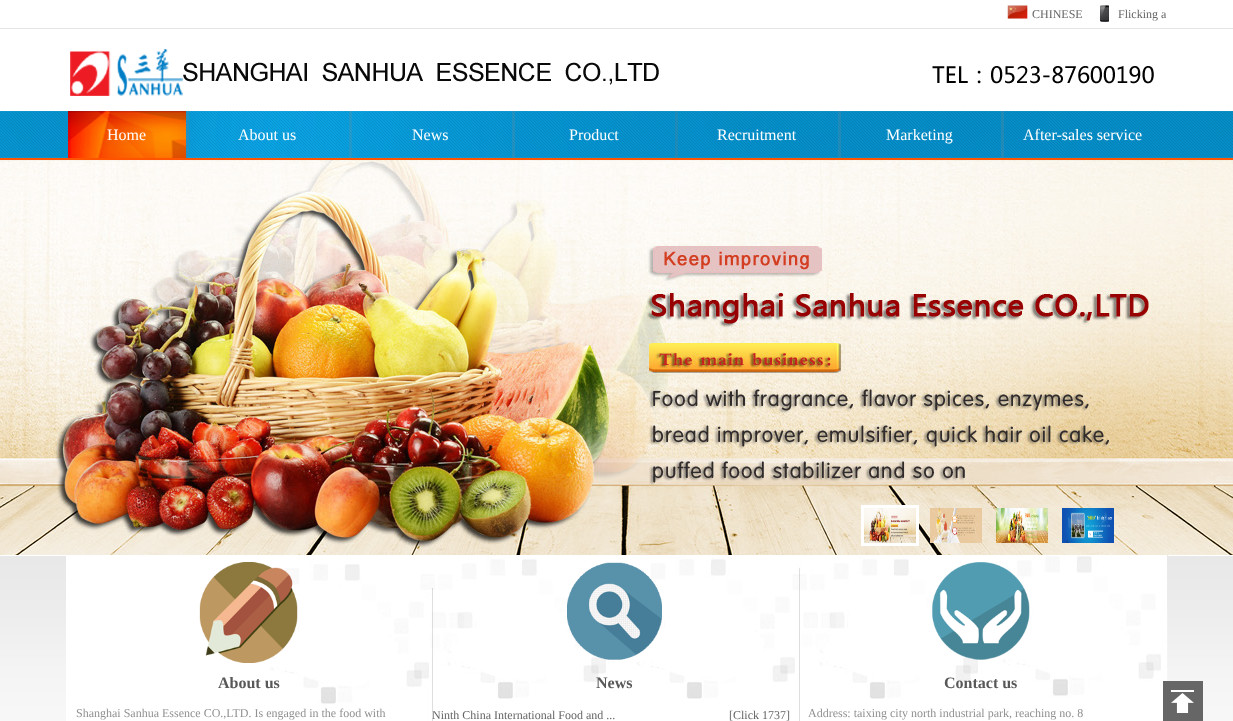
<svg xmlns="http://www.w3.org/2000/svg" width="1233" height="721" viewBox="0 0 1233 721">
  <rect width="100%" height="100%" fill="rgb(255,255,255)"/>
  <rect x="0" y="28" width="1233" height="1" fill="rgb(229,229,229)"/>
  <image x="1007" y="5" width="21" height="14" href="pic1.png"/>
  <text x="1032" y="18" font-family="Liberation Serif" font-size="12" fill="rgb(102,102,102)">CHINESE</text>
  <image x="1100" y="5" width="9" height="17" href="pic2.png"/>
  <text x="1118" y="18" font-family="Liberation Serif" font-size="12" fill="rgb(102,102,102)">Flicking a</text>
  <image x="70" y="49" width="589" height="47" href="pic3.png"/>
  <image x="932" y="66" width="222" height="18" href="pic4.png"/>
  <image x="0" y="111" width="1233" height="47" href="pic5.png"/>
  <rect x="0" y="158" width="1233" height="2" fill="rgb(254,84,0)"/>
  <image x="68" y="111" width="118" height="47" href="pic6.png"/>
  <text x="107" y="140" font-family="Liberation Serif" font-size="16" fill="rgb(255,255,255)">Home</text>
  <rect x="186" y="111" width="3" height="47" fill="rgba(125,125,125,0.2)"/>
  <text x="238" y="140" font-family="Liberation Serif" font-size="16" fill="rgb(255,255,255)">About us</text>
  <rect x="349" y="111" width="3" height="47" fill="rgba(140,140,140,0.2)"/>
  <text x="412" y="140" font-family="Liberation Serif" font-size="16" fill="rgb(255,255,255)">News</text>
  <rect x="512" y="111" width="3" height="47" fill="rgba(140,140,140,0.2)"/>
  <text x="569" y="140" font-family="Liberation Serif" font-size="16" fill="rgb(255,255,255)">Product</text>
  <rect x="675" y="111" width="3" height="47" fill="rgba(125,125,125,0.2)"/>
  <text x="717" y="140" font-family="Liberation Serif" font-size="16" fill="rgb(255,255,255)">Recruitment</text>
  <rect x="838" y="111" width="3" height="47" fill="rgba(140,140,140,0.2)"/>
  <text x="886" y="140" font-family="Liberation Serif" font-size="16" fill="rgb(255,255,255)">Marketing</text>
  <rect x="1001" y="111" width="3" height="47" fill="rgba(140,140,140,0.2)"/>
  <text x="1023" y="140" font-family="Liberation Serif" font-size="16" fill="rgb(255,255,255)">After-sales service</text>
  <image x="0" y="160" width="1233" height="395" href="pic7.png"/>
  <image x="864" y="508" width="52" height="35" href="pic8.png"/>
  <rect x="862.5" y="506.5" width="55" height="38" fill="none" stroke="rgb(255,255,255)" stroke-width="3"/>
  <image x="930" y="508" width="52" height="35" href="pic9.png"/>
  <image x="996" y="508" width="52" height="35" href="pic10.png"/>
  <image x="1062" y="508" width="52" height="35" href="pic11.png"/>
  <image x="0" y="555" width="1233" height="166" href="pic12.png"/>
  <image x="66" y="555" width="1102" height="166" href="pic13.png"/>
  <image x="199" y="562" width="99" height="101" href="pic14.png"/>
  <text x="218" y="688" font-family="Liberation Serif" font-size="16" font-weight="bold" fill="rgb(88,88,88)">About us</text>
  <text x="76" y="717" font-family="Liberation Serif" font-size="12" fill="rgb(145,145,145)">Shanghai Sanhua Essence CO.,LTD. Is engaged in the food with</text>
  <image x="567" y="562" width="95" height="98" href="pic15.png"/>
  <text x="596" y="688" font-family="Liberation Serif" font-size="16" font-weight="bold" fill="rgb(88,88,88)">News</text>
  <g font-family="Liberation Serif" font-size="12" fill="rgb(102,102,102)">
    <text x="432" y="719">Ninth China International Food and ...</text>
    <text x="729" y="719">[Click 1737]</text>
  </g>
  <image x="932" y="562" width="98" height="103" href="pic16.png"/>
  <text x="944" y="688" font-family="Liberation Serif" font-size="16" font-weight="bold" fill="rgb(88,88,88)">Contact us</text>
  <text x="808" y="717" font-family="Liberation Serif" font-size="12" fill="rgb(145,145,145)">Address: taixing city north industrial park, reaching no. 8</text>
  <image x="1163" y="681" width="40" height="40" href="pic17.png"/>
</svg>
